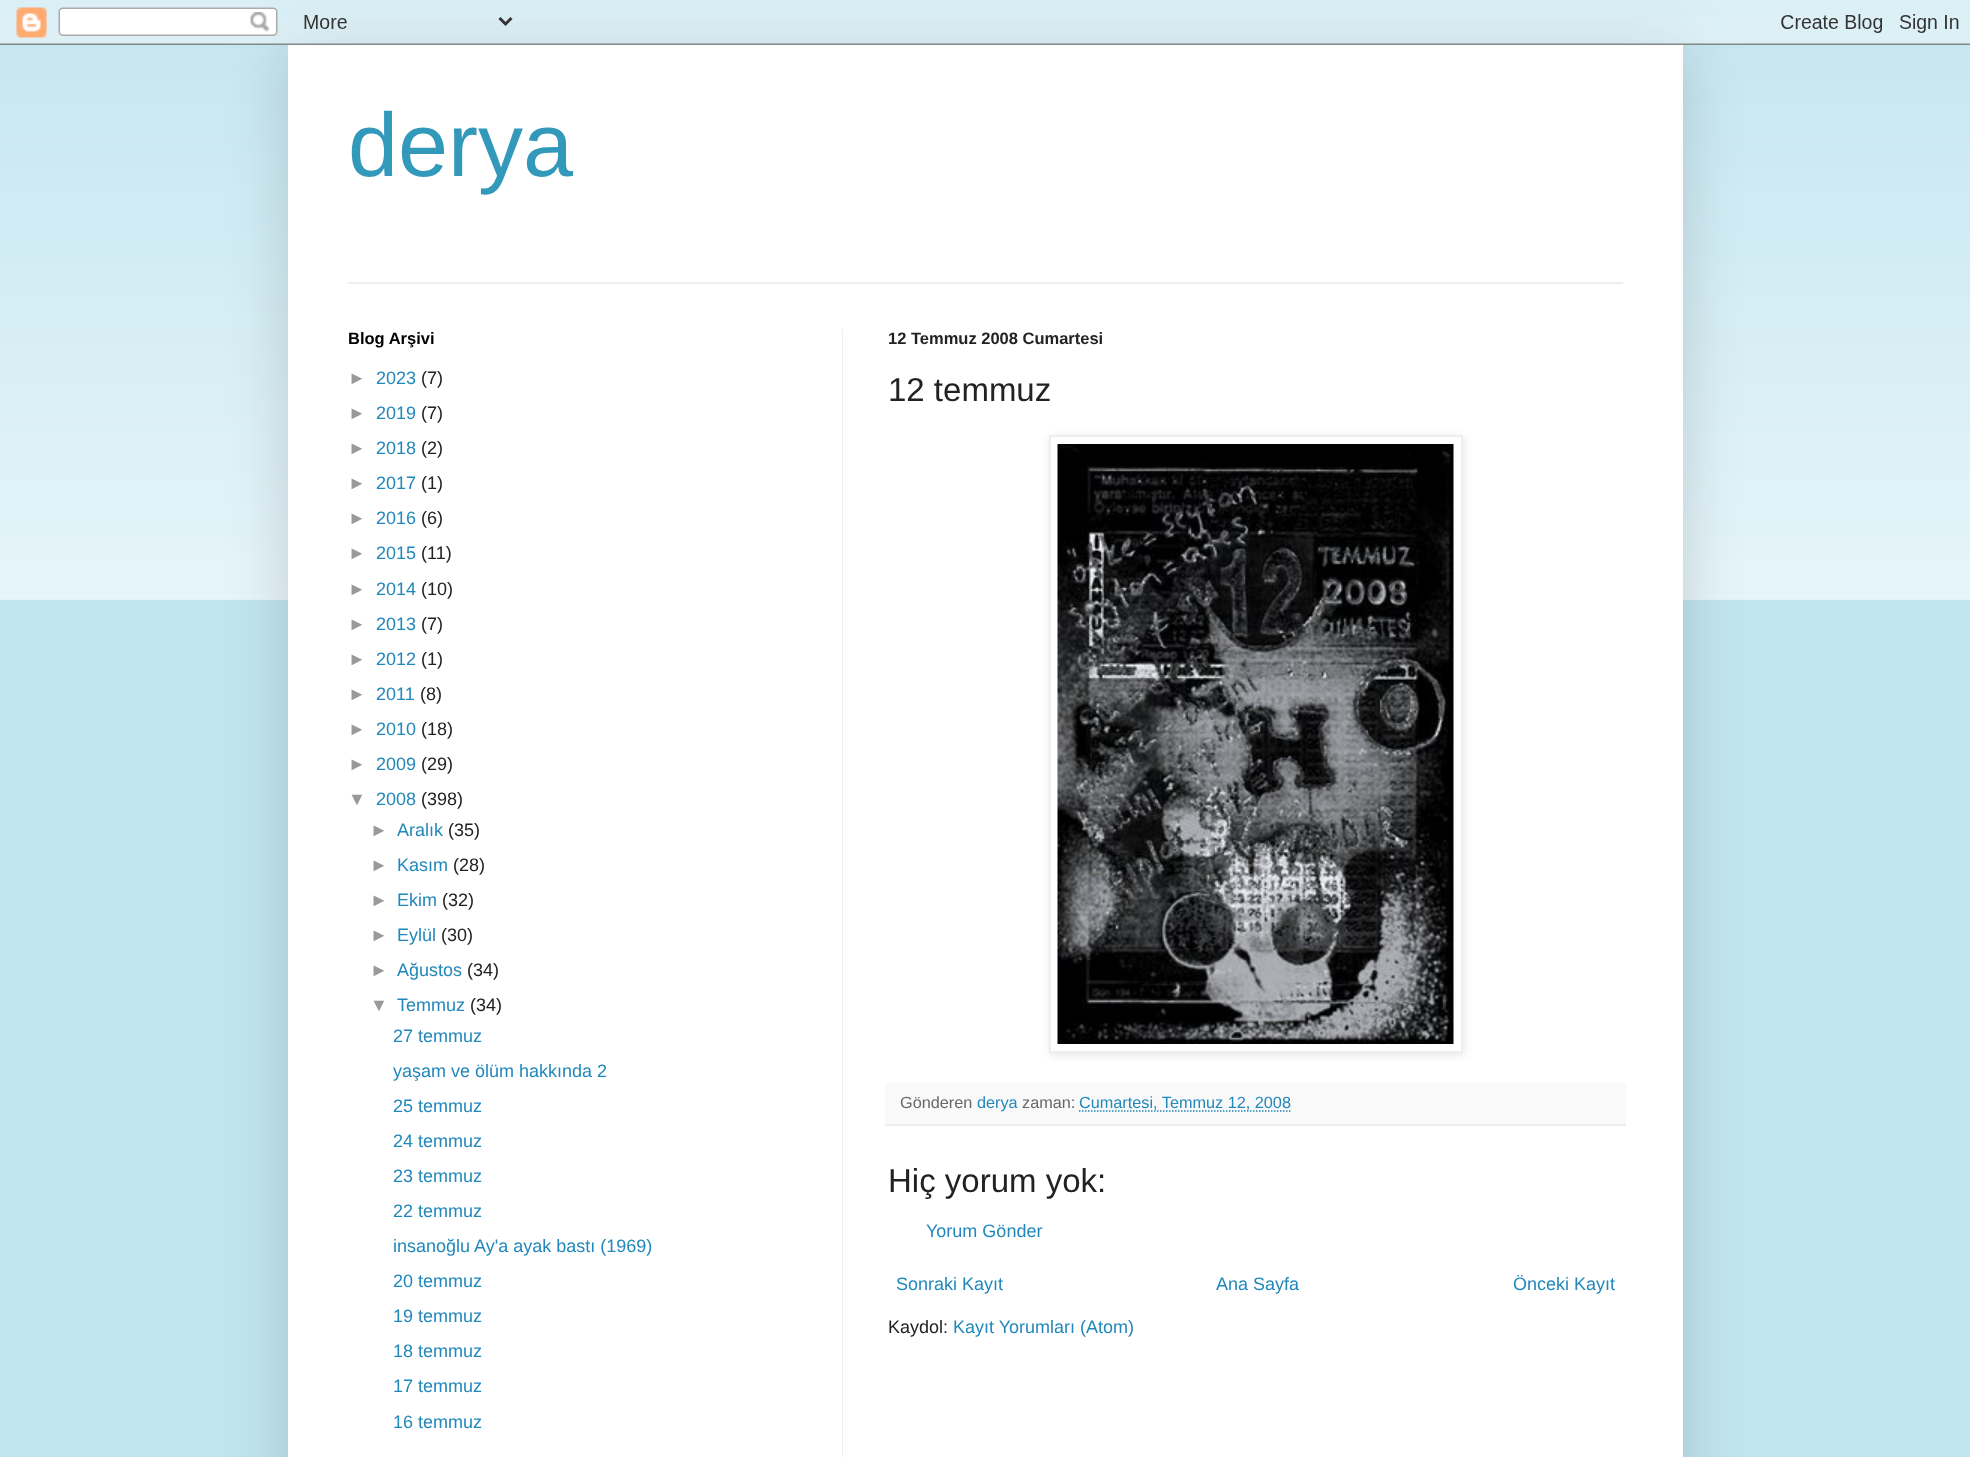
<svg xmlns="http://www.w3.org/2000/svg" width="1970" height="1457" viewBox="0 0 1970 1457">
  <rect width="100%" height="100%" fill="rgb(193,229,240)"/>
  <image x="0" y="15" width="1970" height="585" href="pic2.png"/>
  <rect x="288" y="45" width="1395" height="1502" fill="rgba(0,0,0,0.15)" filter="blur(30px)"/>
  <image x="0" y="0" width="1970" height="45" href="pic1.png"/>
  <rect x="288" y="45" width="1395" height="1412" fill="rgb(255,255,255)"/>
  <text x="348" y="176" font-family="Liberation Sans" font-size="90" fill="rgb(51,153,187)">derya</text>
  <rect x="348" y="282" width="1275" height="2" fill="rgb(238,238,238)"/>
  <rect x="842" y="329" width="1" height="1128" fill="rgb(238,238,238)"/>
  <text x="348" y="344" font-family="Liberation Sans" font-size="16.5" font-weight="bold" fill="rgb(0,0,0)">Blog Arşivi</text>
  <text x="348" y="384" font-family="Liberation Sans" font-size="18" fill="rgb(153,153,153)">►</text>
  <text x="376" y="384" font-family="Liberation Sans" font-size="18" fill="rgb(34,136,187)">2023</text>
  <text x="421" y="384" font-family="Liberation Sans" font-size="18" fill="rgb(34,34,34)">(7)</text>
  <text x="348" y="419" font-family="Liberation Sans" font-size="18" fill="rgb(153,153,153)">►</text>
  <text x="376" y="419" font-family="Liberation Sans" font-size="18" fill="rgb(34,136,187)">2019</text>
  <text x="421" y="419" font-family="Liberation Sans" font-size="18" fill="rgb(34,34,34)">(7)</text>
  <text x="348" y="454" font-family="Liberation Sans" font-size="18" fill="rgb(153,153,153)">►</text>
  <text x="376" y="454" font-family="Liberation Sans" font-size="18" fill="rgb(34,136,187)">2018</text>
  <text x="421" y="454" font-family="Liberation Sans" font-size="18" fill="rgb(34,34,34)">(2)</text>
  <text x="348" y="489" font-family="Liberation Sans" font-size="18" fill="rgb(153,153,153)">►</text>
  <text x="376" y="489" font-family="Liberation Sans" font-size="18" fill="rgb(34,136,187)">2017</text>
  <text x="421" y="489" font-family="Liberation Sans" font-size="18" fill="rgb(34,34,34)">(1)</text>
  <text x="348" y="524" font-family="Liberation Sans" font-size="18" fill="rgb(153,153,153)">►</text>
  <text x="376" y="524" font-family="Liberation Sans" font-size="18" fill="rgb(34,136,187)">2016</text>
  <text x="421" y="524" font-family="Liberation Sans" font-size="18" fill="rgb(34,34,34)">(6)</text>
  <text x="348" y="559" font-family="Liberation Sans" font-size="18" fill="rgb(153,153,153)">►</text>
  <text x="376" y="559" font-family="Liberation Sans" font-size="18" fill="rgb(34,136,187)">2015</text>
  <text x="421" y="559" font-family="Liberation Sans" font-size="18" fill="rgb(34,34,34)">(11)</text>
  <text x="348" y="595" font-family="Liberation Sans" font-size="18" fill="rgb(153,153,153)">►</text>
  <text x="376" y="595" font-family="Liberation Sans" font-size="18" fill="rgb(34,136,187)">2014</text>
  <text x="421" y="595" font-family="Liberation Sans" font-size="18" fill="rgb(34,34,34)">(10)</text>
  <text x="348" y="630" font-family="Liberation Sans" font-size="18" fill="rgb(153,153,153)">►</text>
  <text x="376" y="630" font-family="Liberation Sans" font-size="18" fill="rgb(34,136,187)">2013</text>
  <text x="421" y="630" font-family="Liberation Sans" font-size="18" fill="rgb(34,34,34)">(7)</text>
  <text x="348" y="665" font-family="Liberation Sans" font-size="18" fill="rgb(153,153,153)">►</text>
  <text x="376" y="665" font-family="Liberation Sans" font-size="18" fill="rgb(34,136,187)">2012</text>
  <text x="421" y="665" font-family="Liberation Sans" font-size="18" fill="rgb(34,34,34)">(1)</text>
  <text x="348" y="700" font-family="Liberation Sans" font-size="18" fill="rgb(153,153,153)">►</text>
  <text x="376" y="700" font-family="Liberation Sans" font-size="18" fill="rgb(34,136,187)">2011</text>
  <text x="420" y="700" font-family="Liberation Sans" font-size="18" fill="rgb(34,34,34)">(8)</text>
  <text x="348" y="735" font-family="Liberation Sans" font-size="18" fill="rgb(153,153,153)">►</text>
  <text x="376" y="735" font-family="Liberation Sans" font-size="18" fill="rgb(34,136,187)">2010</text>
  <text x="421" y="735" font-family="Liberation Sans" font-size="18" fill="rgb(34,34,34)">(18)</text>
  <text x="348" y="770" font-family="Liberation Sans" font-size="18" fill="rgb(153,153,153)">►</text>
  <text x="376" y="770" font-family="Liberation Sans" font-size="18" fill="rgb(34,136,187)">2009</text>
  <text x="421" y="770" font-family="Liberation Sans" font-size="18" fill="rgb(34,34,34)">(29)</text>
  <text x="348" y="805" font-family="Liberation Sans" font-size="18" fill="rgb(153,153,153)">▼</text>
  <text x="376" y="805" font-family="Liberation Sans" font-size="18" fill="rgb(34,136,187)">2008</text>
  <text x="421" y="805" font-family="Liberation Sans" font-size="18" fill="rgb(34,34,34)">(398)</text>
  <text x="370" y="836" font-family="Liberation Sans" font-size="18" fill="rgb(153,153,153)">►</text>
  <text x="397" y="836" font-family="Liberation Sans" font-size="18" fill="rgb(34,136,187)">Aralık</text>
  <text x="448" y="836" font-family="Liberation Sans" font-size="18" fill="rgb(34,34,34)">(35)</text>
  <text x="370" y="871" font-family="Liberation Sans" font-size="18" fill="rgb(153,153,153)">►</text>
  <text x="397" y="871" font-family="Liberation Sans" font-size="18" fill="rgb(34,136,187)">Kasım</text>
  <text x="453" y="871" font-family="Liberation Sans" font-size="18" fill="rgb(34,34,34)">(28)</text>
  <text x="370" y="906" font-family="Liberation Sans" font-size="18" fill="rgb(153,153,153)">►</text>
  <text x="397" y="906" font-family="Liberation Sans" font-size="18" fill="rgb(34,136,187)">Ekim</text>
  <text x="442" y="906" font-family="Liberation Sans" font-size="18" fill="rgb(34,34,34)">(32)</text>
  <text x="370" y="941" font-family="Liberation Sans" font-size="18" fill="rgb(153,153,153)">►</text>
  <text x="397" y="941" font-family="Liberation Sans" font-size="18" fill="rgb(34,136,187)">Eylül</text>
  <text x="441" y="941" font-family="Liberation Sans" font-size="18" fill="rgb(34,34,34)">(30)</text>
  <text x="370" y="976" font-family="Liberation Sans" font-size="18" fill="rgb(153,153,153)">►</text>
  <text x="397" y="976" font-family="Liberation Sans" font-size="18" fill="rgb(34,136,187)">Ağustos</text>
  <text x="467" y="976" font-family="Liberation Sans" font-size="18" fill="rgb(34,34,34)">(34)</text>
  <text x="370" y="1011" font-family="Liberation Sans" font-size="18" fill="rgb(153,153,153)">▼</text>
  <text x="397" y="1011" font-family="Liberation Sans" font-size="18" fill="rgb(34,136,187)">Temmuz</text>
  <text x="470" y="1011" font-family="Liberation Sans" font-size="18" fill="rgb(34,34,34)">(34)</text>
  <g font-family="Liberation Sans" font-size="18" fill="rgb(34,136,187)">
    <text>
      <tspan x="393" y="1042">27 temmuz</tspan>
      <tspan x="393" y="1077">yaşam ve ölüm hakkında 2</tspan>
      <tspan x="393" y="1112">25 temmuz</tspan>
      <tspan x="393" y="1147">24 temmuz</tspan>
      <tspan x="393" y="1182">23 temmuz</tspan>
      <tspan x="393" y="1217">22 temmuz</tspan>
      <tspan x="393" y="1252">insanoğlu Ay'a ayak bastı (1969)</tspan>
      <tspan x="393" y="1287">20 temmuz</tspan>
      <tspan x="393" y="1322">19 temmuz</tspan>
      <tspan x="393" y="1357">18 temmuz</tspan>
      <tspan x="393" y="1392">17 temmuz</tspan>
    </text>
    <text x="393" y="1428">16 temmuz</text>
  </g>
  <text x="888" y="344" font-family="Liberation Sans" font-size="16.5" font-weight="bold" fill="rgb(34,34,34)">12 Temmuz 2008 Cumartesi</text>
  <text x="888" y="401" font-family="Liberation Sans" font-size="33" fill="rgb(34,34,34)">12 temmuz</text>
  <rect x="1050" y="437" width="414" height="618" fill="rgba(0,0,0,0.1)" filter="blur(4px)"/>
  <rect x="1050" y="436" width="412" height="616" fill="rgb(255,255,255)" stroke="rgb(238,238,238)" stroke-width="2"/>
  <image x="1057" y="444" width="397" height="600" href="pic3.png"/>
  <rect x="885" y="1083" width="741" height="41" fill="rgb(249,249,249)"/>
  <rect x="885" y="1124" width="741" height="2" fill="rgb(238,238,238)"/>
  <text x="900" y="1108" font-family="Liberation Sans" font-size="16.25" fill="rgb(102,102,102)">Gönderen</text>
  <text x="977" y="1108" font-family="Liberation Sans" font-size="16.25" fill="rgb(34,136,187)">derya</text>
  <text x="1022" y="1108" font-family="Liberation Sans" font-size="16.25" fill="rgb(102,102,102)">zaman:</text>
  <path d="M1079 1111H1290.5" fill="none" stroke="rgb(34,136,187)" stroke-width="1.5" stroke-dasharray="1.5 1.5"/>
  <text x="1079" y="1108" font-family="Liberation Sans" font-size="16.25" fill="rgb(34,136,187)">Cumartesi, Temmuz 12, 2008</text>
  <text x="888" y="1192" font-family="Liberation Sans" font-size="33" fill="rgb(34,34,34)">Hiç yorum yok:</text>
  <g font-family="Liberation Sans" font-size="18" fill="rgb(34,136,187)">
    <text x="926" y="1237">Yorum Gönder</text>
    <text x="896" y="1290">Sonraki Kayıt</text>
    <text x="1216" y="1290">Ana Sayfa</text>
    <text x="1513" y="1290">Önceki Kayıt</text>
  </g>
  <text x="888" y="1333" font-family="Liberation Sans" font-size="18" fill="rgb(34,34,34)">Kaydol:</text>
  <text x="953" y="1333" font-family="Liberation Sans" font-size="18" fill="rgb(34,136,187)">Kayıt Yorumları (Atom)</text>
</svg>
